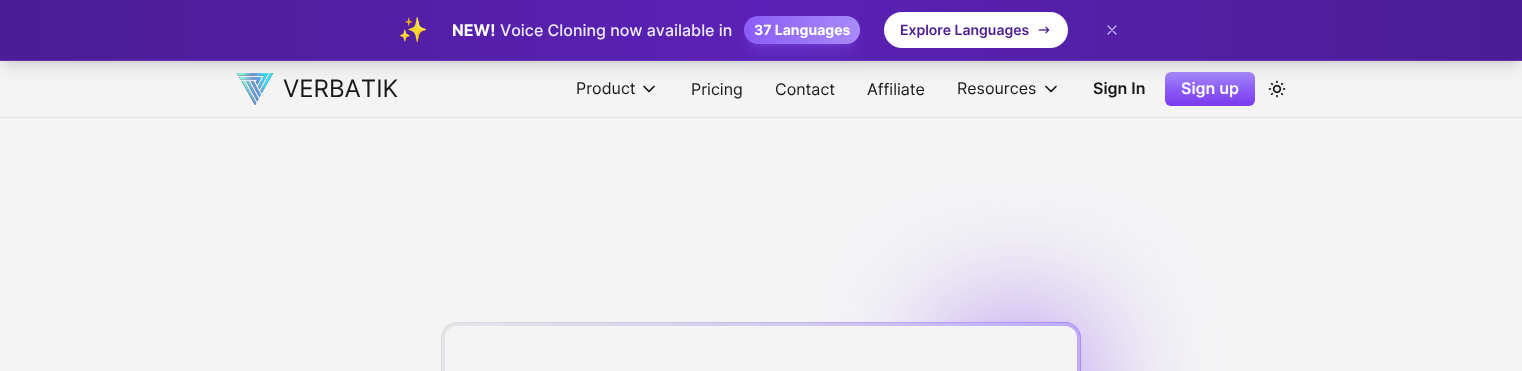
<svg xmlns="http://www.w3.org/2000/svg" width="1522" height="371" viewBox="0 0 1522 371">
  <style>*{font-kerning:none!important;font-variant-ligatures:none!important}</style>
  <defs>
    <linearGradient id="g1" gradientUnits="userSpaceOnUse" x1="1210" y1="72" x2="1210" y2="106"><stop offset="0" stop-color="rgb(167,139,250)"/><stop offset="0.5" stop-color="rgb(139,92,246)"/><stop offset="1" stop-color="rgb(124,58,237)"/></linearGradient>
    <linearGradient id="g2" gradientUnits="userSpaceOnUse" x1="0" y1="30" x2="1522" y2="30"><stop offset="0" stop-color="rgb(76,29,149)"/><stop offset="0.5" stop-color="rgb(91,33,182)"/><stop offset="1" stop-color="rgb(76,29,149)"/></linearGradient>
    <linearGradient id="g3" gradientUnits="userSpaceOnUse" x1="0" y1="30" x2="1522" y2="30"><stop offset="0" stop-color="rgb(95,48,178)"/><stop offset="0.5" stop-color="rgb(105,51,201)"/><stop offset="1" stop-color="rgb(95,48,178)"/></linearGradient>
    <linearGradient id="g4" gradientUnits="userSpaceOnUse" x1="744" y1="30" x2="860" y2="30"><stop offset="0" stop-color="rgb(139,92,246)"/><stop offset="1" stop-color="rgb(167,139,250)"/></linearGradient>
    <linearGradient id="g5" gradientUnits="userSpaceOnUse" x1="1223" y1="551" x2="299" y2="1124"><stop offset="0" stop-color="rgb(167,139,250)"/><stop offset="0.5" stop-color="rgb(212,212,216)" stop-opacity="0.7"/><stop offset="1" stop-color="rgb(167,139,250)"/></linearGradient>
  </defs>
  <rect width="100%" height="100%" fill="rgb(244,244,245)"/>
  <rect x="4" y="8" width="1514" height="53" fill="rgba(0,0,0,0.1)" filter="blur(3px)"/>
  <image x="236" y="73" width="38" height="32" href="pic2.png"/>
  <path d="M644 86.5L649 91.5L654 86.5" fill="none" stroke="rgb(24,24,27)" stroke-width="1.7" stroke-linecap="round" stroke-linejoin="round"/>
  <path d="M1046 86.5L1051 91.5L1056 86.5" fill="none" stroke="rgb(24,24,27)" stroke-width="1.7" stroke-linecap="round" stroke-linejoin="round"/>
  <rect x="1165" y="72" width="90" height="34" rx="6" fill="url(#g1)"/>
  <image x="1268" y="80" width="18" height="18" href="pic3.png"/>
  <rect x="3" y="13" width="1516" height="55" fill="rgba(0,0,0,0.1)" filter="blur(7.5px)"/>
  <rect x="0" y="0" width="1522" height="60" fill="url(#g2)"/>
  <rect x="0" y="60" width="1522" height="1" fill="url(#g3)"/>
  <text x="398" y="38" font-family="Noto Color Emoji" font-size="24" fill="rgb(24,24,27)">✨</text>
  <text x="452" y="36" font-family="Inter" font-size="16" font-weight="bold" fill="rgb(255,255,255)">NEW!</text>
  <text x="500" y="36" font-family="Inter" font-size="16" font-weight="500" fill="rgb(237,233,254)">Voice Cloning now available in</text>
  <rect x="748" y="24" width="108" height="20" rx="10" fill="rgba(139,92,246,0.3)" filter="blur(3px)"/>
  <rect x="747" y="29" width="110" height="22" rx="11" fill="rgba(139,92,246,0.3)" filter="blur(7.5px)"/>
  <rect x="744" y="16" width="116" height="28" rx="14" fill="url(#g4)"/>
  <text x="754" y="35" font-family="Inter" font-size="14" font-weight="bold" fill="rgb(255,255,255)">37 Languages</text>
  <rect x="884" y="12" width="184" height="36" rx="18" fill="rgb(255,255,255)"/>
  <text x="900" y="35" font-family="Inter" font-size="14" font-weight="600" fill="rgb(76,29,149)">Explore Languages</text>
  <image x="1038" y="26" width="12" height="8" href="pic1.png"/>
  <path d="M1116 26L1108 34M1108 26L1116 34" fill="none" stroke="rgb(196,181,253)" stroke-width="1.3" stroke-linecap="round" stroke-linejoin="round"/>
  <rect x="0" y="117" width="1522" height="1" fill="rgb(228,228,231)"/>
  <text x="283" y="97" font-family="Inter" font-size="24" fill="rgb(24,24,27)">VERBATIK</text>
  <g font-family="Inter" font-size="16" fill="rgb(24,24,27)">
    <text x="576" y="94">Product</text>
    <text x="691" y="95">Pricing</text>
    <text x="775" y="95">Contact</text>
    <text x="867" y="95">Affiliate</text>
    <text x="957" y="94">Resources</text>
  </g>
  <text x="1093" y="94" font-family="Inter" font-size="16" font-weight="600" fill="rgb(24,24,27)">Sign In</text>
  <text x="1181" y="94" font-family="Inter" font-size="16" font-weight="600" fill="rgb(255,255,255)">Sign up</text>
  <rect x="953" y="322" width="128" height="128" fill="rgba(124,58,237,0.7)" filter="blur(64px)"/>
  <rect x="441" y="322" width="640" height="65" rx="16" fill="url(#g5)"/>
  <rect x="442" y="323" width="638" height="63" rx="15" fill="rgba(244,244,245,0.3)"/>
  <rect x="445" y="326" width="632" height="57" rx="12" fill="rgb(244,244,245)"/>
</svg>
